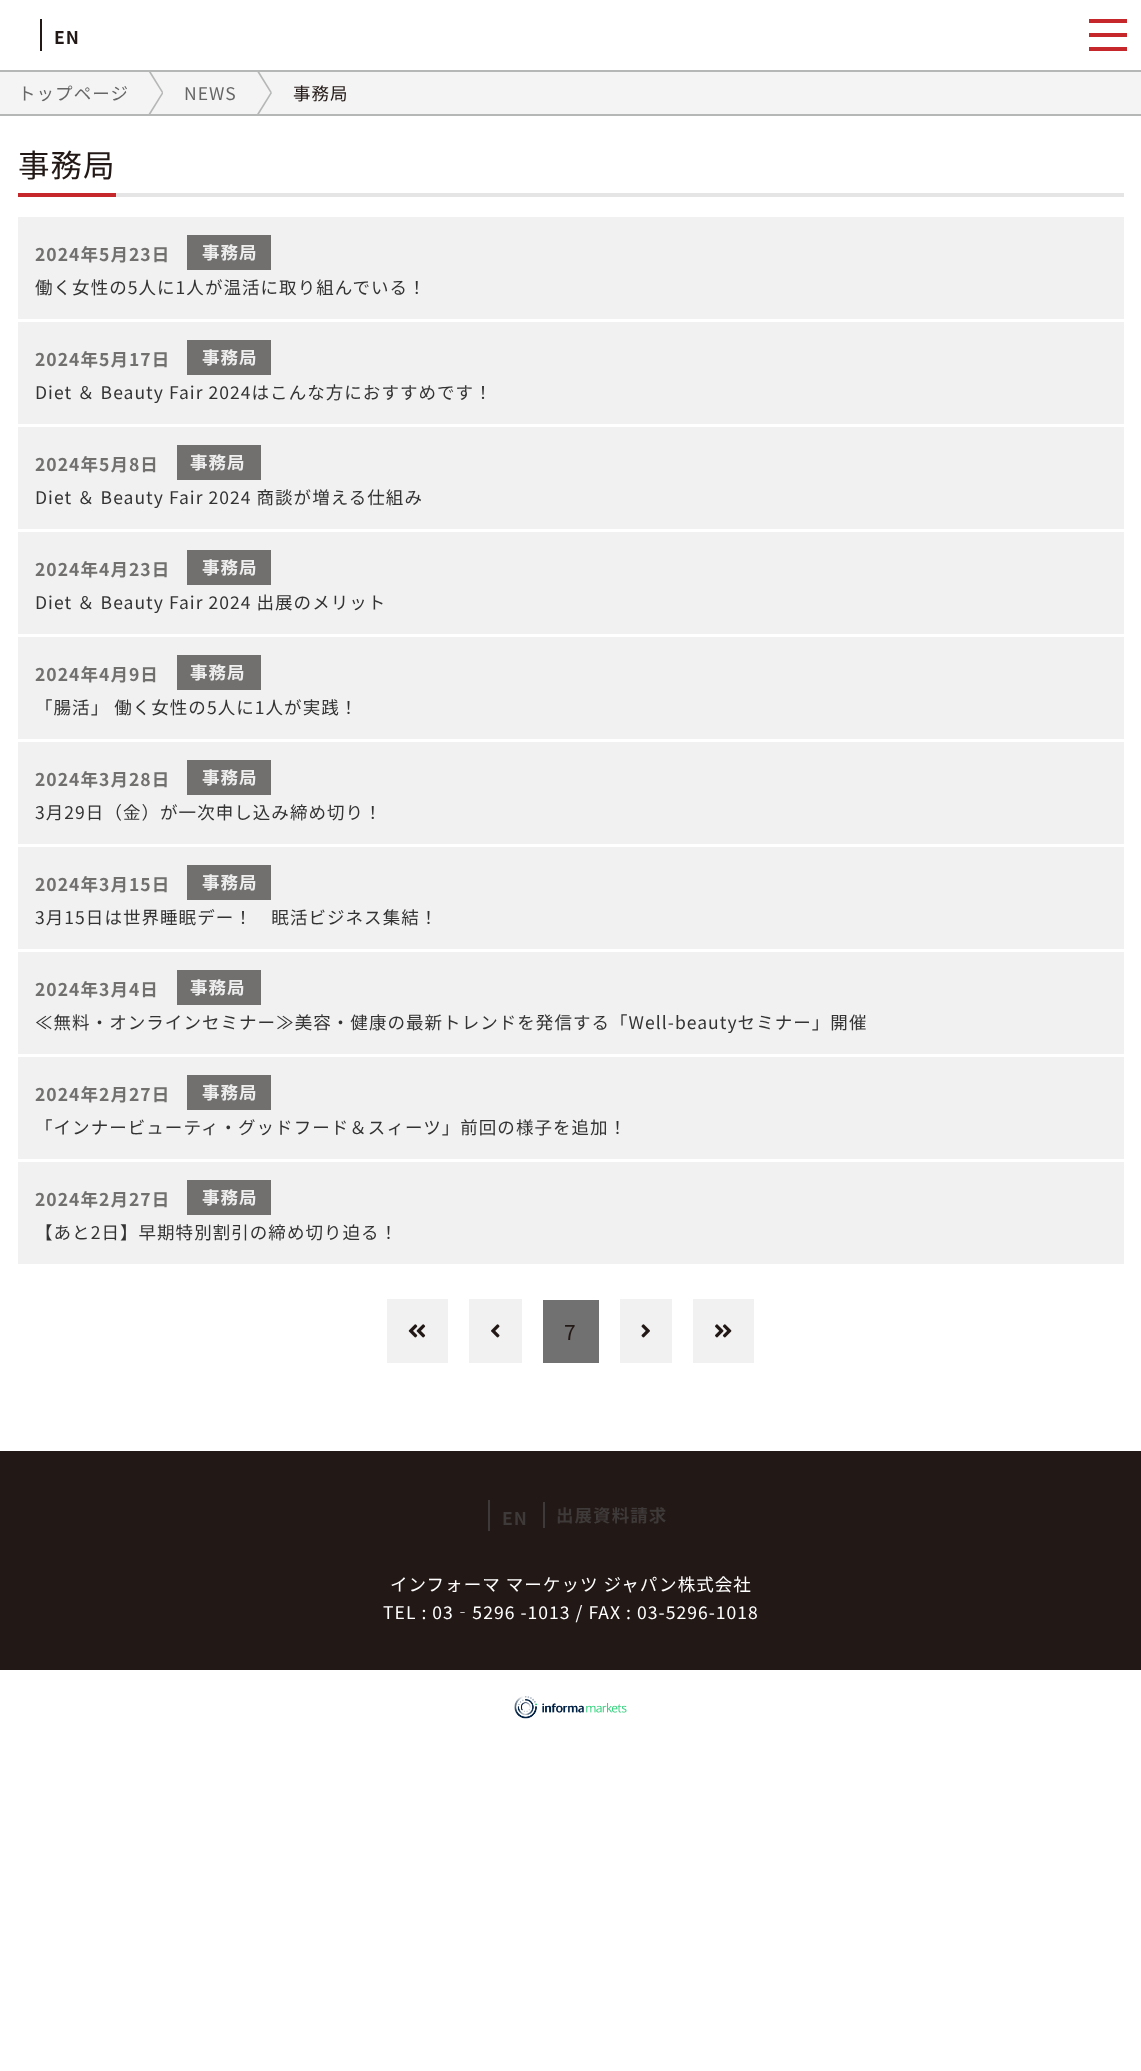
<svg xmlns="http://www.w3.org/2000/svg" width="1141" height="2071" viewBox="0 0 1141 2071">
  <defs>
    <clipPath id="clip1"><rect x="18" y="72" width="145" height="42"/></clipPath>
    <clipPath id="clip2"><rect x="184" y="72" width="89" height="42"/></clipPath>
  </defs>
  <rect width="100%" height="100%" fill="rgb(255,255,255)"/>
  <rect x="0" y="70" width="1141" height="2" fill="rgb(181,182,182)"/>
  <rect x="40" y="19" width="2" height="32" fill="rgb(34,24,21)"/>
  <text x="54" y="44" font-family="Noto Sans JP" font-size="17.5" font-weight="bold" letter-spacing="1.05" fill="rgb(34,24,21)">EN</text>
  <rect x="1089" y="19" width="38" height="4" fill="rgb(198,39,43)"/>
  <rect x="1089" y="33" width="38" height="4" fill="rgb(198,39,43)"/>
  <rect x="1089" y="47" width="38" height="4" fill="rgb(198,39,43)"/>
  <rect x="0" y="72" width="1141" height="42" fill="rgb(244,244,244)"/>
  <rect x="0" y="114" width="1141" height="2" fill="rgb(181,182,182)"/>
  <text x="18" y="100" font-family="Noto Sans JP" font-size="17.5" letter-spacing="1.05" fill="rgb(102,102,102)">トップページ</text>
  <g clip-path="url(#clip1)">
    <path d="M142 61L143.5 60L163.5 92.5L162 93Z" fill="rgb(181,182,182)"/>
    <path d="M162 92.5L163.5 93L143.5 125.5L142 124.5Z" fill="rgb(181,182,182)"/>
  </g>
  <text x="184" y="100" font-family="Noto Sans JP" font-size="17.5" letter-spacing="1.05" fill="rgb(102,102,102)">NEWS</text>
  <g clip-path="url(#clip2)">
    <path d="M250.5 61L252 60L272 92.5L270.5 93Z" fill="rgb(181,182,182)"/>
    <path d="M270.5 92.5L272 93L252 125.5L250.5 124.5Z" fill="rgb(181,182,182)"/>
  </g>
  <text x="293" y="100" font-family="Noto Sans JP" font-size="17.5" letter-spacing="1.05" fill="rgb(34,24,21)">事務局</text>
  <text x="18" y="177" font-family="Noto Sans JP" font-size="31.5" letter-spacing="1.05" fill="rgb(34,24,21)">事務局</text>
  <rect x="18" y="193" width="98" height="4" fill="rgb(198,39,43)"/>
  <rect x="116" y="193" width="1008" height="4" fill="rgb(229,229,229)"/>
  <rect x="18" y="217" width="1106" height="102" fill="rgb(241,241,241)"/>
  <text x="35" y="261" font-family="Noto Sans JP" font-size="17.5" font-weight="bold" letter-spacing="1.05" fill="rgb(113,112,111)">2024年5月23日</text>
  <rect x="187" y="235" width="84" height="35" fill="rgb(113,112,111)"/>
  <text x="202" y="259" font-family="Noto Sans JP" font-size="17.5" font-weight="bold" letter-spacing="1.05" fill="rgb(238,238,238)">事務局</text>
  <text x="35" y="294" font-family="Noto Sans JP" font-size="17.5" letter-spacing="1.05" fill="rgb(51,51,51)">働く女性の5人に1人が温活に取り組んでいる！</text>
  <rect x="18" y="322" width="1106" height="102" fill="rgb(241,241,241)"/>
  <text x="35" y="366" font-family="Noto Sans JP" font-size="17.5" font-weight="bold" letter-spacing="1.05" fill="rgb(113,112,111)">2024年5月17日</text>
  <rect x="187" y="340" width="84" height="35" fill="rgb(113,112,111)"/>
  <text x="202" y="364" font-family="Noto Sans JP" font-size="17.5" font-weight="bold" letter-spacing="1.05" fill="rgb(238,238,238)">事務局</text>
  <text x="35" y="399" font-family="Noto Sans JP" font-size="17.5" letter-spacing="1.05" fill="rgb(51,51,51)">Diet ＆ Beauty Fair 2024はこんな方におすすめです！</text>
  <rect x="18" y="427" width="1106" height="102" fill="rgb(241,241,241)"/>
  <text x="35" y="471" font-family="Noto Sans JP" font-size="17.5" font-weight="bold" letter-spacing="1.05" fill="rgb(113,112,111)">2024年5月8日</text>
  <rect x="177" y="445" width="84" height="35" fill="rgb(113,112,111)"/>
  <text x="190" y="469" font-family="Noto Sans JP" font-size="17.5" font-weight="bold" letter-spacing="1.05" fill="rgb(238,238,238)">事務局</text>
  <text x="35" y="504" font-family="Noto Sans JP" font-size="17.5" letter-spacing="1.05" fill="rgb(51,51,51)">Diet ＆ Beauty Fair 2024 商談が増える仕組み</text>
  <rect x="18" y="532" width="1106" height="102" fill="rgb(241,241,241)"/>
  <text x="35" y="576" font-family="Noto Sans JP" font-size="17.5" font-weight="bold" letter-spacing="1.05" fill="rgb(113,112,111)">2024年4月23日</text>
  <rect x="187" y="550" width="84" height="35" fill="rgb(113,112,111)"/>
  <text x="202" y="574" font-family="Noto Sans JP" font-size="17.5" font-weight="bold" letter-spacing="1.05" fill="rgb(238,238,238)">事務局</text>
  <text x="35" y="609" font-family="Noto Sans JP" font-size="17.5" letter-spacing="1.05" fill="rgb(51,51,51)">Diet ＆ Beauty Fair 2024 出展のメリット</text>
  <rect x="18" y="637" width="1106" height="102" fill="rgb(241,241,241)"/>
  <text x="35" y="681" font-family="Noto Sans JP" font-size="17.5" font-weight="bold" letter-spacing="1.05" fill="rgb(113,112,111)">2024年4月9日</text>
  <rect x="177" y="655" width="84" height="35" fill="rgb(113,112,111)"/>
  <text x="190" y="679" font-family="Noto Sans JP" font-size="17.5" font-weight="bold" letter-spacing="1.05" fill="rgb(238,238,238)">事務局</text>
  <text x="35" y="714" font-family="Noto Sans JP" font-size="17.5" letter-spacing="1.05" fill="rgb(51,51,51)">「腸活」 働く女性の5人に1人が実践！</text>
  <rect x="18" y="742" width="1106" height="102" fill="rgb(241,241,241)"/>
  <text x="35" y="786" font-family="Noto Sans JP" font-size="17.5" font-weight="bold" letter-spacing="1.05" fill="rgb(113,112,111)">2024年3月28日</text>
  <rect x="187" y="760" width="84" height="35" fill="rgb(113,112,111)"/>
  <text x="202" y="784" font-family="Noto Sans JP" font-size="17.5" font-weight="bold" letter-spacing="1.05" fill="rgb(238,238,238)">事務局</text>
  <text x="35" y="819" font-family="Noto Sans JP" font-size="17.5" letter-spacing="1.05" fill="rgb(51,51,51)">3月29日（金）が一次申し込み締め切り！</text>
  <rect x="18" y="847" width="1106" height="102" fill="rgb(241,241,241)"/>
  <text x="35" y="891" font-family="Noto Sans JP" font-size="17.5" font-weight="bold" letter-spacing="1.05" fill="rgb(113,112,111)">2024年3月15日</text>
  <rect x="187" y="865" width="84" height="35" fill="rgb(113,112,111)"/>
  <text x="202" y="889" font-family="Noto Sans JP" font-size="17.5" font-weight="bold" letter-spacing="1.05" fill="rgb(238,238,238)">事務局</text>
  <text x="35" y="924" font-family="Noto Sans JP" font-size="17.5" letter-spacing="1.05" fill="rgb(51,51,51)">3月15日は世界睡眠デー！　眠活ビジネス集結！</text>
  <rect x="18" y="952" width="1106" height="102" fill="rgb(241,241,241)"/>
  <text x="35" y="996" font-family="Noto Sans JP" font-size="17.5" font-weight="bold" letter-spacing="1.05" fill="rgb(113,112,111)">2024年3月4日</text>
  <rect x="177" y="970" width="84" height="35" fill="rgb(113,112,111)"/>
  <text x="190" y="994" font-family="Noto Sans JP" font-size="17.5" font-weight="bold" letter-spacing="1.05" fill="rgb(238,238,238)">事務局</text>
  <text x="35" y="1029" font-family="Noto Sans JP" font-size="17.5" letter-spacing="1.05" fill="rgb(51,51,51)">≪無料・オンラインセミナー≫美容・健康の最新トレンドを発信する「Well-beautyセミナー」開催</text>
  <rect x="18" y="1057" width="1106" height="102" fill="rgb(241,241,241)"/>
  <text x="35" y="1101" font-family="Noto Sans JP" font-size="17.5" font-weight="bold" letter-spacing="1.05" fill="rgb(113,112,111)">2024年2月27日</text>
  <rect x="187" y="1075" width="84" height="35" fill="rgb(113,112,111)"/>
  <text x="202" y="1099" font-family="Noto Sans JP" font-size="17.5" font-weight="bold" letter-spacing="1.05" fill="rgb(238,238,238)">事務局</text>
  <text x="35" y="1134" font-family="Noto Sans JP" font-size="17.5" letter-spacing="1.05" fill="rgb(51,51,51)">「インナービューティ・グッドフード＆スィーツ」前回の様子を追加！</text>
  <rect x="18" y="1162" width="1106" height="102" fill="rgb(241,241,241)"/>
  <text x="35" y="1206" font-family="Noto Sans JP" font-size="17.5" font-weight="bold" letter-spacing="1.05" fill="rgb(113,112,111)">2024年2月27日</text>
  <rect x="187" y="1180" width="84" height="35" fill="rgb(113,112,111)"/>
  <text x="202" y="1204" font-family="Noto Sans JP" font-size="17.5" font-weight="bold" letter-spacing="1.05" fill="rgb(238,238,238)">事務局</text>
  <text x="35" y="1239" font-family="Noto Sans JP" font-size="17.5" letter-spacing="1.05" fill="rgb(51,51,51)">【あと2日】早期特別割引の締め切り迫る！</text>
  <rect x="387" y="1299" width="61" height="64" fill="rgb(241,241,241)"/>
  <image x="408" y="1324" width="18" height="14" href="pic1.png"/>
  <rect x="469" y="1299" width="53" height="64" fill="rgb(241,241,241)"/>
  <image x="491" y="1324" width="9" height="14" href="pic2.png"/>
  <rect x="543" y="1300" width="56" height="63" fill="rgb(114,113,113)"/>
  <text x="564" y="1340" font-family="Noto Sans JP" font-size="21" letter-spacing="1.05" fill="rgb(34,24,21)">7</text>
  <rect x="620" y="1299" width="52" height="64" fill="rgb(241,241,241)"/>
  <image x="641" y="1324" width="9" height="14" href="pic3.png"/>
  <rect x="693" y="1299" width="61" height="64" fill="rgb(241,241,241)"/>
  <image x="715" y="1324" width="17" height="14" href="pic4.png"/>
  <rect x="0" y="1451" width="1141" height="219" fill="rgb(34,24,21)"/>
  <rect x="488" y="1500" width="2" height="31" fill="rgb(62,58,57)"/>
  <text x="502" y="1525" font-family="Noto Sans JP" font-size="17.5" font-weight="bold" letter-spacing="1.05" fill="rgb(62,58,57)">EN</text>
  <rect x="543" y="1502" width="2" height="26" fill="rgb(62,58,57)"/>
  <text x="556" y="1522" font-family="Noto Sans JP" font-size="17.5" font-weight="bold" letter-spacing="1.05" fill="rgb(62,58,57)">出展資料請求</text>
  <g font-family="Noto Sans JP" font-size="17.5" letter-spacing="1.05" fill="rgb(255,255,255)">
    <text x="390" y="1591">インフォーマ マーケッツ ジャパン株式会社</text>
    <text x="383" y="1619">TEL : 03‐5296 -1013 / FAX : 03-5296-1018</text>
  </g>
  <image x="514" y="1696" width="113" height="23" href="pic5.png"/>
</svg>
